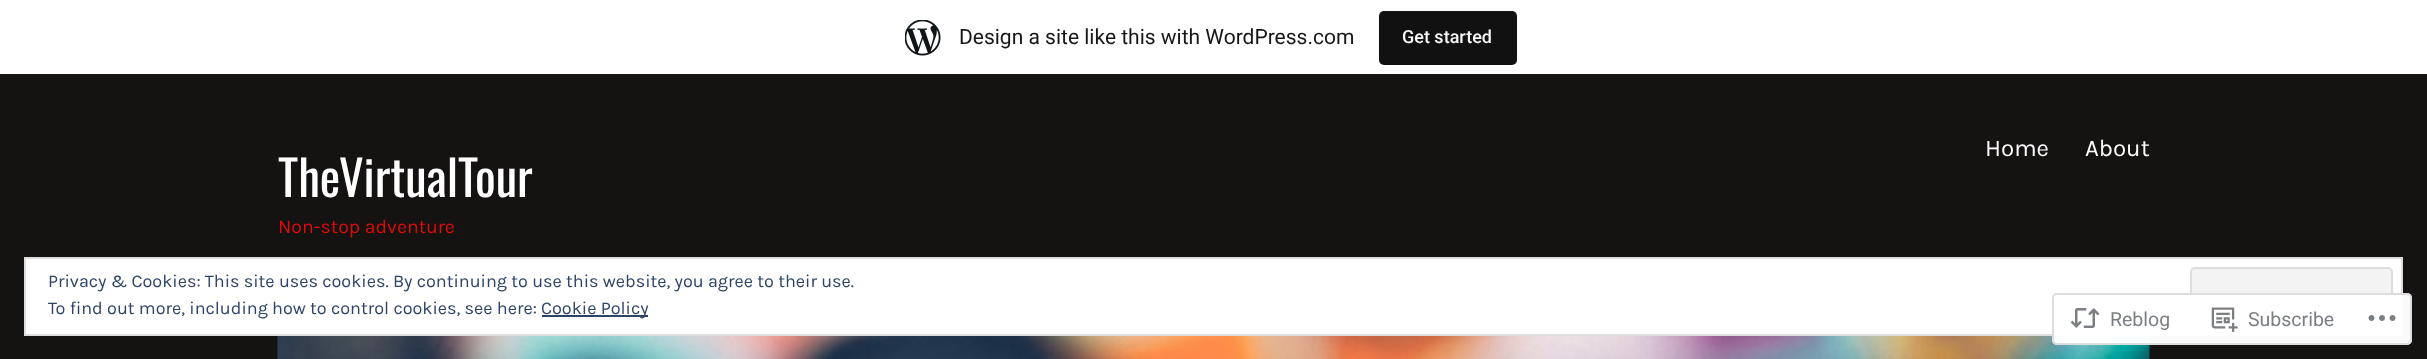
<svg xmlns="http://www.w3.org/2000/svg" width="2427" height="359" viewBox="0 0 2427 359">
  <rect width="100%" height="100%" fill="rgb(21,18,18)"/>
  <rect x="0" y="0" width="2427" height="74" fill="rgb(255,255,255)"/>
  <image x="905" y="20" width="36" height="36" href="pic1.png"/>
  <text x="959" y="44" font-family="Roboto" font-size="21" fill="rgb(23,23,23)">Design a site like this with WordPress.com</text>
  <rect x="1379" y="11" width="138" height="54" rx="5" fill="rgb(17,17,17)"/>
  <text x="1402" y="43" font-family="Roboto" font-size="18" font-weight="500" fill="rgb(246,247,247)">Get started</text>
  <g font-family="Karla" font-size="24" fill="rgb(255,255,255)">
    <text x="1985" y="156">Home</text>
    <text x="2085" y="156">About</text>
  </g>
  <text x="278" y="197" font-family="Oswald" font-size="48.75" fill="rgb(255,255,255)">TheVirtualTour</text>
  <text x="278" y="233" font-family="Karla" font-size="19.5" fill="rgb(221,12,12)">Non-stop adventure</text>
  <image x="277" y="336" width="1873" height="23" href="pic2.png"/>
  <rect x="25" y="258" width="2377" height="77" fill="rgb(255,255,255)" stroke="rgb(222,222,222)" stroke-width="2"/>
  <text x="48" y="287" font-family="Karla" font-size="18" fill="rgb(46,68,103)">Privacy &amp; Cookies: This site uses cookies. By continuing to use this website, you agree to their use.</text>
  <rect x="2191" y="268" width="201" height="57" rx="4" fill="rgb(243,243,243)" stroke="rgb(222,222,222)" stroke-width="2"/>
  <text x="48" y="314" font-family="Karla" font-size="18" fill="rgb(46,68,103)">To find out more, including how to control cookies, see here:</text>
  <rect x="542" y="315" width="106" height="2" fill="rgb(46,68,103)"/>
  <text x="541" y="314" font-family="Karla" font-size="18" fill="rgb(46,68,103)">Cookie Policy</text>
  <rect x="2052" y="293" width="360" height="52" rx="5" fill="rgba(255,255,255,0.98)"/>
  <rect x="2053" y="294" width="358" height="50" rx="4" fill="none" stroke="rgba(220,220,222,0.98)" stroke-width="2"/>
  <image x="2070" y="308" width="30" height="20" href="pic3.png"/>
  <text x="2110" y="326" font-family="Roboto" font-size="19.5" fill="rgb(123,127,133)">Reblog</text>
  <image x="2211" y="307" width="27" height="25" href="pic4.png"/>
  <text x="2248" y="326" font-family="Roboto" font-size="19.5" fill="rgb(123,127,133)">Subscribe</text>
  <image x="2368" y="315" width="28" height="6" href="pic5.png"/>
</svg>
